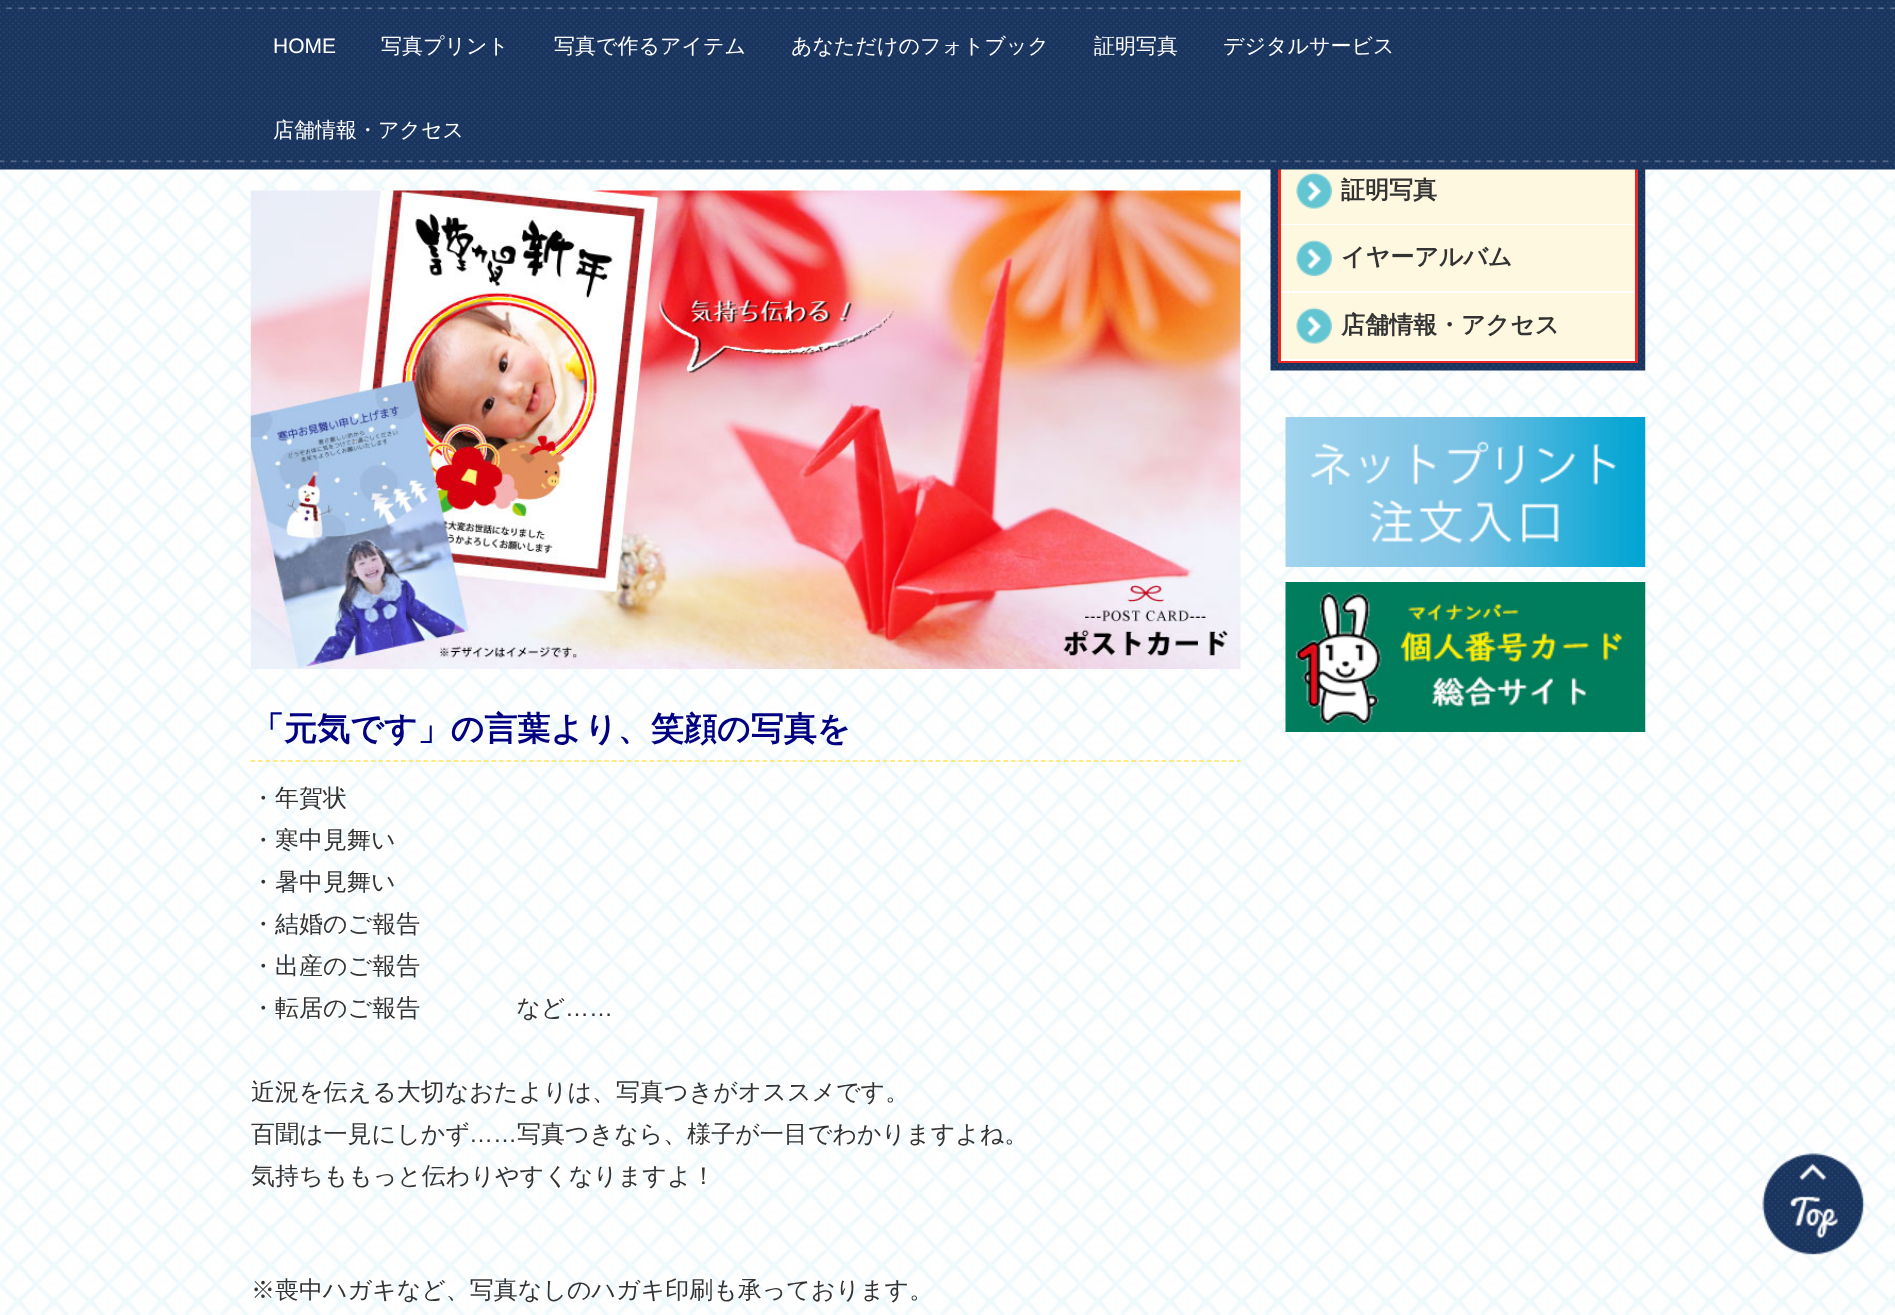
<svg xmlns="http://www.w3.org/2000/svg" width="1895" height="1315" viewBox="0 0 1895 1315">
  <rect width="100%" height="100%" fill="rgb(255,255,255)"/>
  <image x="0" y="169" width="1895" height="1146" href="pic1.png"/>
  <image x="1270" y="169" width="376" height="202" href="pic3.png"/>
  <rect x="1279.5" y="88.5" width="357" height="273" fill="none" stroke="rgb(238,39,34)" stroke-width="3"/>
  <rect x="1281" y="169" width="354" height="55" fill="rgb(254,248,224)"/>
  <image x="0" y="0" width="1895" height="170" href="pic2.png"/>
  <text x="273" y="53" font-family="Liberation Sans" font-size="21" fill="rgb(255,255,255)">HOME</text>
  <g font-family="WenQuanYi Zen Hei" font-size="21" font-weight="500" fill="rgb(255,255,255)">
    <text x="381" y="53">写真プリント</text>
    <text x="554" y="53">写真で作るアイテム</text>
    <text x="791" y="53">あなただけのフォトブック</text>
    <text x="1094" y="53">証明写真</text>
    <text x="1223" y="53">デジタルサービス</text>
    <text x="273" y="137">店舗情報・アクセス</text>
  </g>
  <rect x="1281" y="224" width="354" height="1" fill="rgb(255,255,255)"/>
  <image x="1296" y="172" width="36" height="37" href="pic4.png"/>
  <text x="1341" y="198" font-family="WenQuanYi Zen Hei" font-size="24" font-weight="bold" fill="rgb(51,51,51)">証明写真</text>
  <rect x="1281" y="225" width="354" height="66" fill="rgb(254,248,224)"/>
  <rect x="1281" y="291" width="354" height="2" fill="rgb(255,255,255)"/>
  <image x="1296" y="240" width="36" height="36" href="pic5.png"/>
  <text x="1341" y="265" font-family="WenQuanYi Zen Hei" font-size="24" font-weight="bold" fill="rgb(51,51,51)">イヤーアルバム</text>
  <rect x="1281" y="293" width="354" height="66" fill="rgb(254,248,224)"/>
  <rect x="1281" y="359" width="354" height="2" fill="rgb(255,255,255)"/>
  <image x="1296" y="307" width="36" height="37" href="pic4.png"/>
  <text x="1341" y="333" font-family="WenQuanYi Zen Hei" font-size="24" font-weight="bold" fill="rgb(51,51,51)">店舗情報・アクセス</text>
  <image x="1285" y="417" width="361" height="150" href="pic6.png"/>
  <image x="1285" y="582" width="361" height="150" href="pic7.png"/>
  <image x="250" y="190" width="991" height="479" href="pic8.png"/>
  <path d="M250.5 761H1240.5" fill="none" stroke="rgb(255,226,90)" stroke-width="1.5" stroke-dasharray="4.5 3.03"/>
  <text x="251" y="740" font-family="WenQuanYi Zen Hei" font-size="33" font-weight="bold" fill="rgb(0,0,128)">「元気です」の言葉より、笑顔の写真を</text>
  <g font-family="WenQuanYi Zen Hei" font-size="24" font-weight="500" fill="rgb(51,51,51)">
    <text>
      <tspan x="251" y="806">・年賀状</tspan>
      <tspan x="251" y="848">・寒中見舞い</tspan>
      <tspan x="251" y="890">・暑中見舞い</tspan>
      <tspan x="251" y="932">・結婚のご報告</tspan>
      <tspan x="251" y="974">・出産のご報告</tspan>
      <tspan x="251" y="1016">・転居のご報告　　　　など</tspan>
    </text>
  </g>
  <text x="565" y="1016" font-family="Liberation Sans" font-size="24" fill="rgb(51,51,51)">……</text>
  <g font-family="WenQuanYi Zen Hei" font-size="24" font-weight="500" fill="rgb(51,51,51)">
    <text>
      <tspan x="251" y="1100">近況を伝える大切なおたよりは、写真つきがオススメです。</tspan>
      <tspan x="251" y="1142">百聞は一見にしかず</tspan>
    </text>
  </g>
  <text x="469" y="1142" font-family="Liberation Sans" font-size="24" fill="rgb(51,51,51)">……</text>
  <g font-family="WenQuanYi Zen Hei" font-size="24" font-weight="500" fill="rgb(51,51,51)">
    <text x="517" y="1142">写真つきなら、様子が一目でわかりますよね。</text>
    <text x="251" y="1184">気持ちももっと伝わりやすくなりますよ！</text>
    <text x="251" y="1298">※喪中ハガキなど、写真なしのハガキ印刷も承っております。</text>
  </g>
  <image x="1762" y="1153" width="103" height="102" href="pic9.png"/>
</svg>
